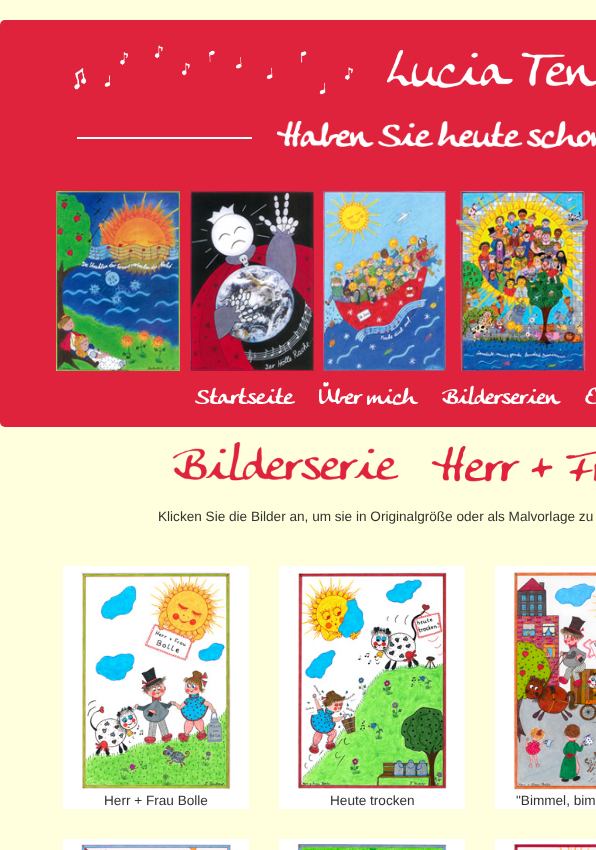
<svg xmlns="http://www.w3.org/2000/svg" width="596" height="850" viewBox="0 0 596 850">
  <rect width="100%" height="100%" fill="rgb(255,255,221)"/>
  <rect x="0" y="20" width="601" height="407" rx="5" fill="rgb(224,35,61)"/>
  <image x="74" y="45" width="279" height="50" href="pic1.png"/>
  <image x="387" y="50" width="209" height="39" href="pic2.png"/>
  <rect x="77" y="137" width="175" height="2" fill="rgb(255,255,255)"/>
  <image x="277" y="121" width="319" height="28" href="pic3.png"/>
  <image x="56" y="191" width="124" height="180" href="pic4.png"/>
  <image x="190" y="191" width="124" height="180" href="pic5.png"/>
  <image x="323" y="191" width="123" height="180" href="pic6.png"/>
  <image x="456" y="191" width="132" height="180" href="pic7.png"/>
  <g font-family="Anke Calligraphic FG" font-size="21.75" font-weight="bold" fill="rgb(255,255,255)">
    <text x="195" y="404">Startseite</text>
    <text x="319" y="404">Über mich</text>
    <text x="442" y="404">Bilderserien</text>
    <text x="585" y="404">E</text>
  </g>
  <image x="173" y="442" width="226" height="39" href="pic8.png"/>
  <image x="431" y="446" width="165" height="36" href="pic9.png"/>
  <text x="158" y="521" font-family="Liberation Sans" font-size="13.6" fill="rgb(51,51,51)">Klicken Sie die Bilder an, um sie in Originalgröße oder als Malvorlage zu</text>
  <rect x="63" y="566" width="186" height="243" fill="rgb(255,255,255)"/>
  <image x="81" y="571" width="150" height="219" href="pic10.png"/>
  <text x="104" y="805" font-family="Liberation Sans" font-size="13.6" fill="rgb(51,51,51)">Herr + Frau Bolle</text>
  <rect x="279" y="566" width="186" height="243" fill="rgb(255,255,255)"/>
  <image x="297" y="571" width="150" height="219" href="pic11.png"/>
  <text x="330" y="805" font-family="Liberation Sans" font-size="13.6" fill="rgb(51,51,51)">Heute trocken</text>
  <rect x="495" y="566" width="101" height="243" fill="rgb(255,255,255)"/>
  <image x="513" y="571" width="83" height="219" href="pic12.png"/>
  <text x="516" y="805" font-family="Liberation Sans" font-size="13.6" fill="rgb(51,51,51)">"Bimmel, bim</text>
  <rect x="63" y="839" width="186" height="11" fill="rgb(255,255,255)"/>
  <image x="81" y="844" width="150" height="6" href="pic13.png"/>
  <rect x="279" y="839" width="186" height="11" fill="rgb(255,255,255)"/>
  <image x="297" y="844" width="150" height="6" href="pic14.png"/>
  <rect x="495" y="839" width="101" height="11" fill="rgb(255,255,255)"/>
  <image x="513" y="844" width="83" height="6" href="pic15.png"/>
</svg>
